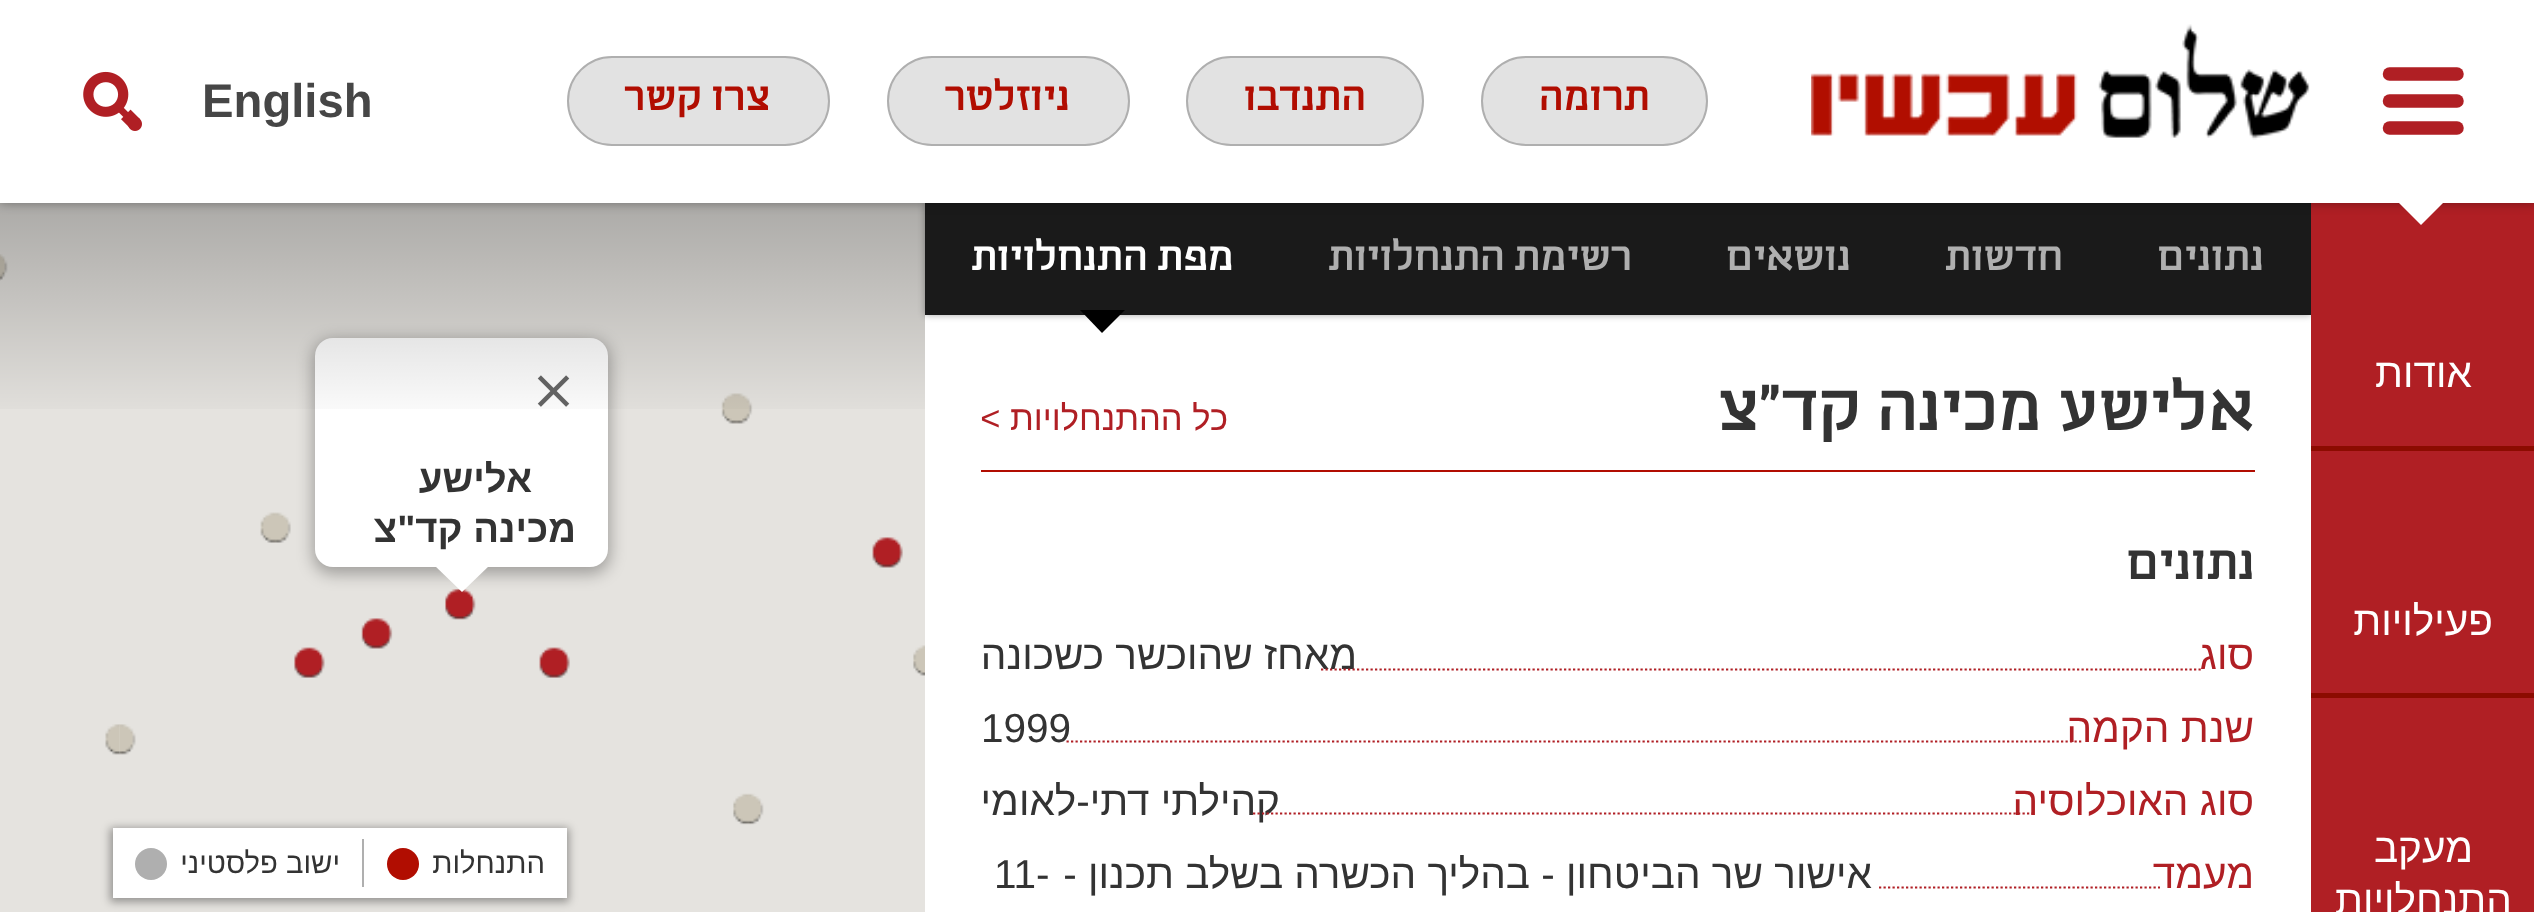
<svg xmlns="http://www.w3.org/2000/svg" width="2534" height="912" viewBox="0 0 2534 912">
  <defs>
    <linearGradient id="g1" gradientUnits="userSpaceOnUse" x1="462" y1="202" x2="462" y2="428"><stop offset="0" stop-color="rgb(0,0,0)" stop-opacity="0.25"/><stop offset="1" stop-color="rgb(0,0,0)" stop-opacity="0"/></linearGradient>
  </defs>
  <rect width="100%" height="100%" fill="rgb(255,255,255)"/>
  <rect x="0" y="203" width="925" height="709" fill="rgb(229,227,223)"/>
  <image x="0" y="254" width="8" height="27" href="pic3.png"/>
  <image x="721" y="393" width="204" height="432" href="pic4.png"/>
  <image x="119" y="512" width="451" height="243" href="pic5.png"/>
  <rect x="313" y="340" width="297" height="234" rx="20" fill="rgba(0,0,0,0.3)" filter="blur(8px)"/>
  <rect x="315" y="338" width="293" height="229" rx="18" fill="rgb(255,255,255)"/>
  <image x="537" y="375" width="33" height="32" href="pic7.png"/>
  <rect x="0" y="203" width="925" height="206" fill="url(#g1)"/>
  <rect x="925" y="203" width="1386" height="112" fill="rgba(0,0,0,0.35)" filter="blur(3.5px)"/>
  <rect x="2311" y="203" width="223" height="709" fill="rgb(176,31,36)"/>
  <rect x="925" y="203" width="1386" height="112" fill="rgb(26,26,26)"/>
  <rect x="0" y="0" width="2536" height="203" fill="rgba(0,0,0,0.35)" filter="blur(5.5px)"/>
  <rect x="0" y="0" width="2534" height="203" fill="rgb(255,255,255)"/>
  <path d="M2389.5 74H2457" fill="none" stroke="rgb(176,31,36)" stroke-width="13.5" stroke-linecap="round"/>
  <path d="M2389.5 101H2457" fill="none" stroke="rgb(176,31,36)" stroke-width="13.5" stroke-linecap="round"/>
  <path d="M2389.5 128H2457" fill="none" stroke="rgb(176,31,36)" stroke-width="13.5" stroke-linecap="round"/>
  <path d="M2398 202H2444L2421 225Z" fill="rgb(255,255,255)"/>
  <image x="1811" y="24" width="499" height="116" href="pic1.png"/>
  <rect x="1482" y="57" width="225" height="88" rx="44" fill="rgb(226,226,226)" stroke="rgb(175,175,175)" stroke-width="2"/>
  <text x="1650" y="110" font-family="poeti" font-size="47.25" font-weight="bold" direction="rtl" fill="rgb(177,13,1)">תרומה</text>
  <rect x="1187" y="57" width="236" height="88" rx="44" fill="rgb(226,226,226)" stroke="rgb(175,175,175)" stroke-width="2"/>
  <text x="1366" y="110" font-family="poeti" font-size="47.25" font-weight="bold" direction="rtl" fill="rgb(177,13,1)">התנדבו</text>
  <rect x="888" y="57" width="241" height="88" rx="44" fill="rgb(226,226,226)" stroke="rgb(175,175,175)" stroke-width="2"/>
  <text x="1070" y="110" font-family="poeti" font-size="47.25" font-weight="bold" direction="rtl" fill="rgb(177,13,1)">ניוזלטר</text>
  <rect x="568" y="57" width="261" height="88" rx="44" fill="rgb(226,226,226)" stroke="rgb(175,175,175)" stroke-width="2"/>
  <text x="771" y="110" font-family="poeti" font-size="47.25" font-weight="bold" direction="rtl" fill="rgb(177,13,1)">צרו קשר</text>
  <text x="202" y="117" font-family="Liberation Sans" font-size="47.25" font-weight="bold" fill="rgb(70,70,70)">English</text>
  <image x="83" y="71" width="59" height="60" href="pic2.png"/>
  <rect x="2311" y="446" width="223" height="5" fill="rgb(140,11,0)"/>
  <text x="2472" y="387" font-family="Liberation Sans" font-size="40.5" direction="rtl" fill="rgb(255,255,255)">אודות</text>
  <rect x="2311" y="693" width="223" height="5" fill="rgb(140,11,0)"/>
  <g font-family="Liberation Sans" font-size="40.5" direction="rtl" fill="rgb(255,255,255)">
    <text x="2493" y="635">פעילויות</text>
    <text x="2473" y="862">מעקב</text>
    <text x="2512" y="914">התנחלויות</text>
  </g>
  <g font-family="poeti" font-size="47.25" font-weight="bold" direction="rtl" fill="rgb(175,175,175)">
    <text x="2264" y="270">נתונים</text>
    <text x="2063" y="270">חדשות</text>
    <text x="1851" y="270">נושאים</text>
    <text x="1632" y="270">רשימת התנחלויות</text>
  </g>
  <text x="1234" y="270" font-family="poeti" font-size="47.25" font-weight="bold" direction="rtl" fill="rgb(255,255,255)">מפת התנחלויות</text>
  <path d="M1080 310H1125L1102 333Z" fill="rgb(0,0,0)"/>
  <text x="2254" y="430" font-family="poeti" font-size="78.75" font-weight="bold" direction="rtl" fill="rgb(51,51,51)">אלישע מכינה קד"צ</text>
  <text x="1228" y="430" font-family="Liberation Sans" font-size="34.5" direction="rtl" fill="rgb(176,31,36)">כל ההתנחלויות &gt;</text>
  <rect x="981" y="470" width="1274" height="2" fill="rgb(177,13,1)"/>
  <text x="2255" y="579" font-family="poeti" font-size="57" font-weight="bold" direction="rtl" fill="rgb(51,51,51)">נתונים</text>
  <text x="2254" y="669" font-family="Liberation Sans" font-size="40.5" direction="rtl" fill="rgb(176,31,36)">סוג</text>
  <text x="1357" y="669" font-family="Liberation Sans" font-size="40.5" direction="rtl" fill="rgb(51,51,51)">מאחז שהוכשר כשכונה</text>
  <path d="M1321 669.5H2203" fill="none" stroke="rgb(176,31,36)" stroke-width="2.2" stroke-dasharray="2.25 2.25"/>
  <text x="2254" y="742" font-family="Liberation Sans" font-size="40.5" direction="rtl" fill="rgb(176,31,36)">שנת הקמה</text>
  <text x="981" y="742" font-family="Liberation Sans" font-size="40.5" fill="rgb(51,51,51)">1999</text>
  <path d="M1066.5 741.5H2083.5" fill="none" stroke="rgb(176,31,36)" stroke-width="2.2" stroke-dasharray="2.25 2.25"/>
  <text x="2254" y="815" font-family="Liberation Sans" font-size="40.5" direction="rtl" fill="rgb(176,31,36)">סוג האוכלוסיה</text>
  <text x="1280" y="815" font-family="Liberation Sans" font-size="40.5" direction="rtl" fill="rgb(51,51,51)">קהילתי דתי-לאומי</text>
  <path d="M1253 813.5H2036" fill="none" stroke="rgb(176,31,36)" stroke-width="2.2" stroke-dasharray="2.25 2.25"/>
  <text x="2254" y="888" font-family="Liberation Sans" font-size="40.5" direction="rtl" fill="rgb(176,31,36)">מעמד</text>
  <path d="M1879 887.5H2160" fill="none" stroke="rgb(176,31,36)" stroke-width="2.2" stroke-dasharray="2.25 2.25"/>
  <text x="1872" y="888" font-family="Liberation Sans" font-size="40.5" direction="rtl" fill="rgb(51,51,51)">אישור שר הביטחון - בהליך הכשרה בשלב תכנון -</text>
  <text x="994" y="888" font-family="Liberation Sans" font-size="40.5" fill="rgb(51,51,51)">11-</text>
  <image x="105" y="724" width="15" height="31" href="pic6.png"/>
  <g font-family="Liberation Sans" font-size="38.25" font-weight="bold" direction="rtl" fill="rgb(51,51,51)">
    <text x="532" y="492">אלישע</text>
    <text x="576" y="542">מכינה קד"צ</text>
  </g>
  <path d="M490 565H434L462 592Z" fill="rgb(255,255,255)"/>
  <rect x="110" y="828" width="459" height="74" fill="rgba(0,0,0,0.35)" filter="blur(4.5px)"/>
  <rect x="113" y="828" width="454" height="70" fill="rgb(255,255,255)"/>
  <rect x="362" y="839" width="2" height="48" fill="rgb(175,175,175)"/>
  <text x="545" y="873" font-family="Liberation Sans" font-size="29.25" direction="rtl" fill="rgb(51,51,51)">התנחלות</text>
  <circle cx="403" cy="864" r="16" fill="rgb(177,13,1)"/>
  <text x="340" y="873" font-family="Liberation Sans" font-size="29.25" direction="rtl" fill="rgb(51,51,51)">ישוב פלסטיני</text>
  <circle cx="151" cy="864" r="16" fill="rgb(175,175,175)"/>
</svg>
